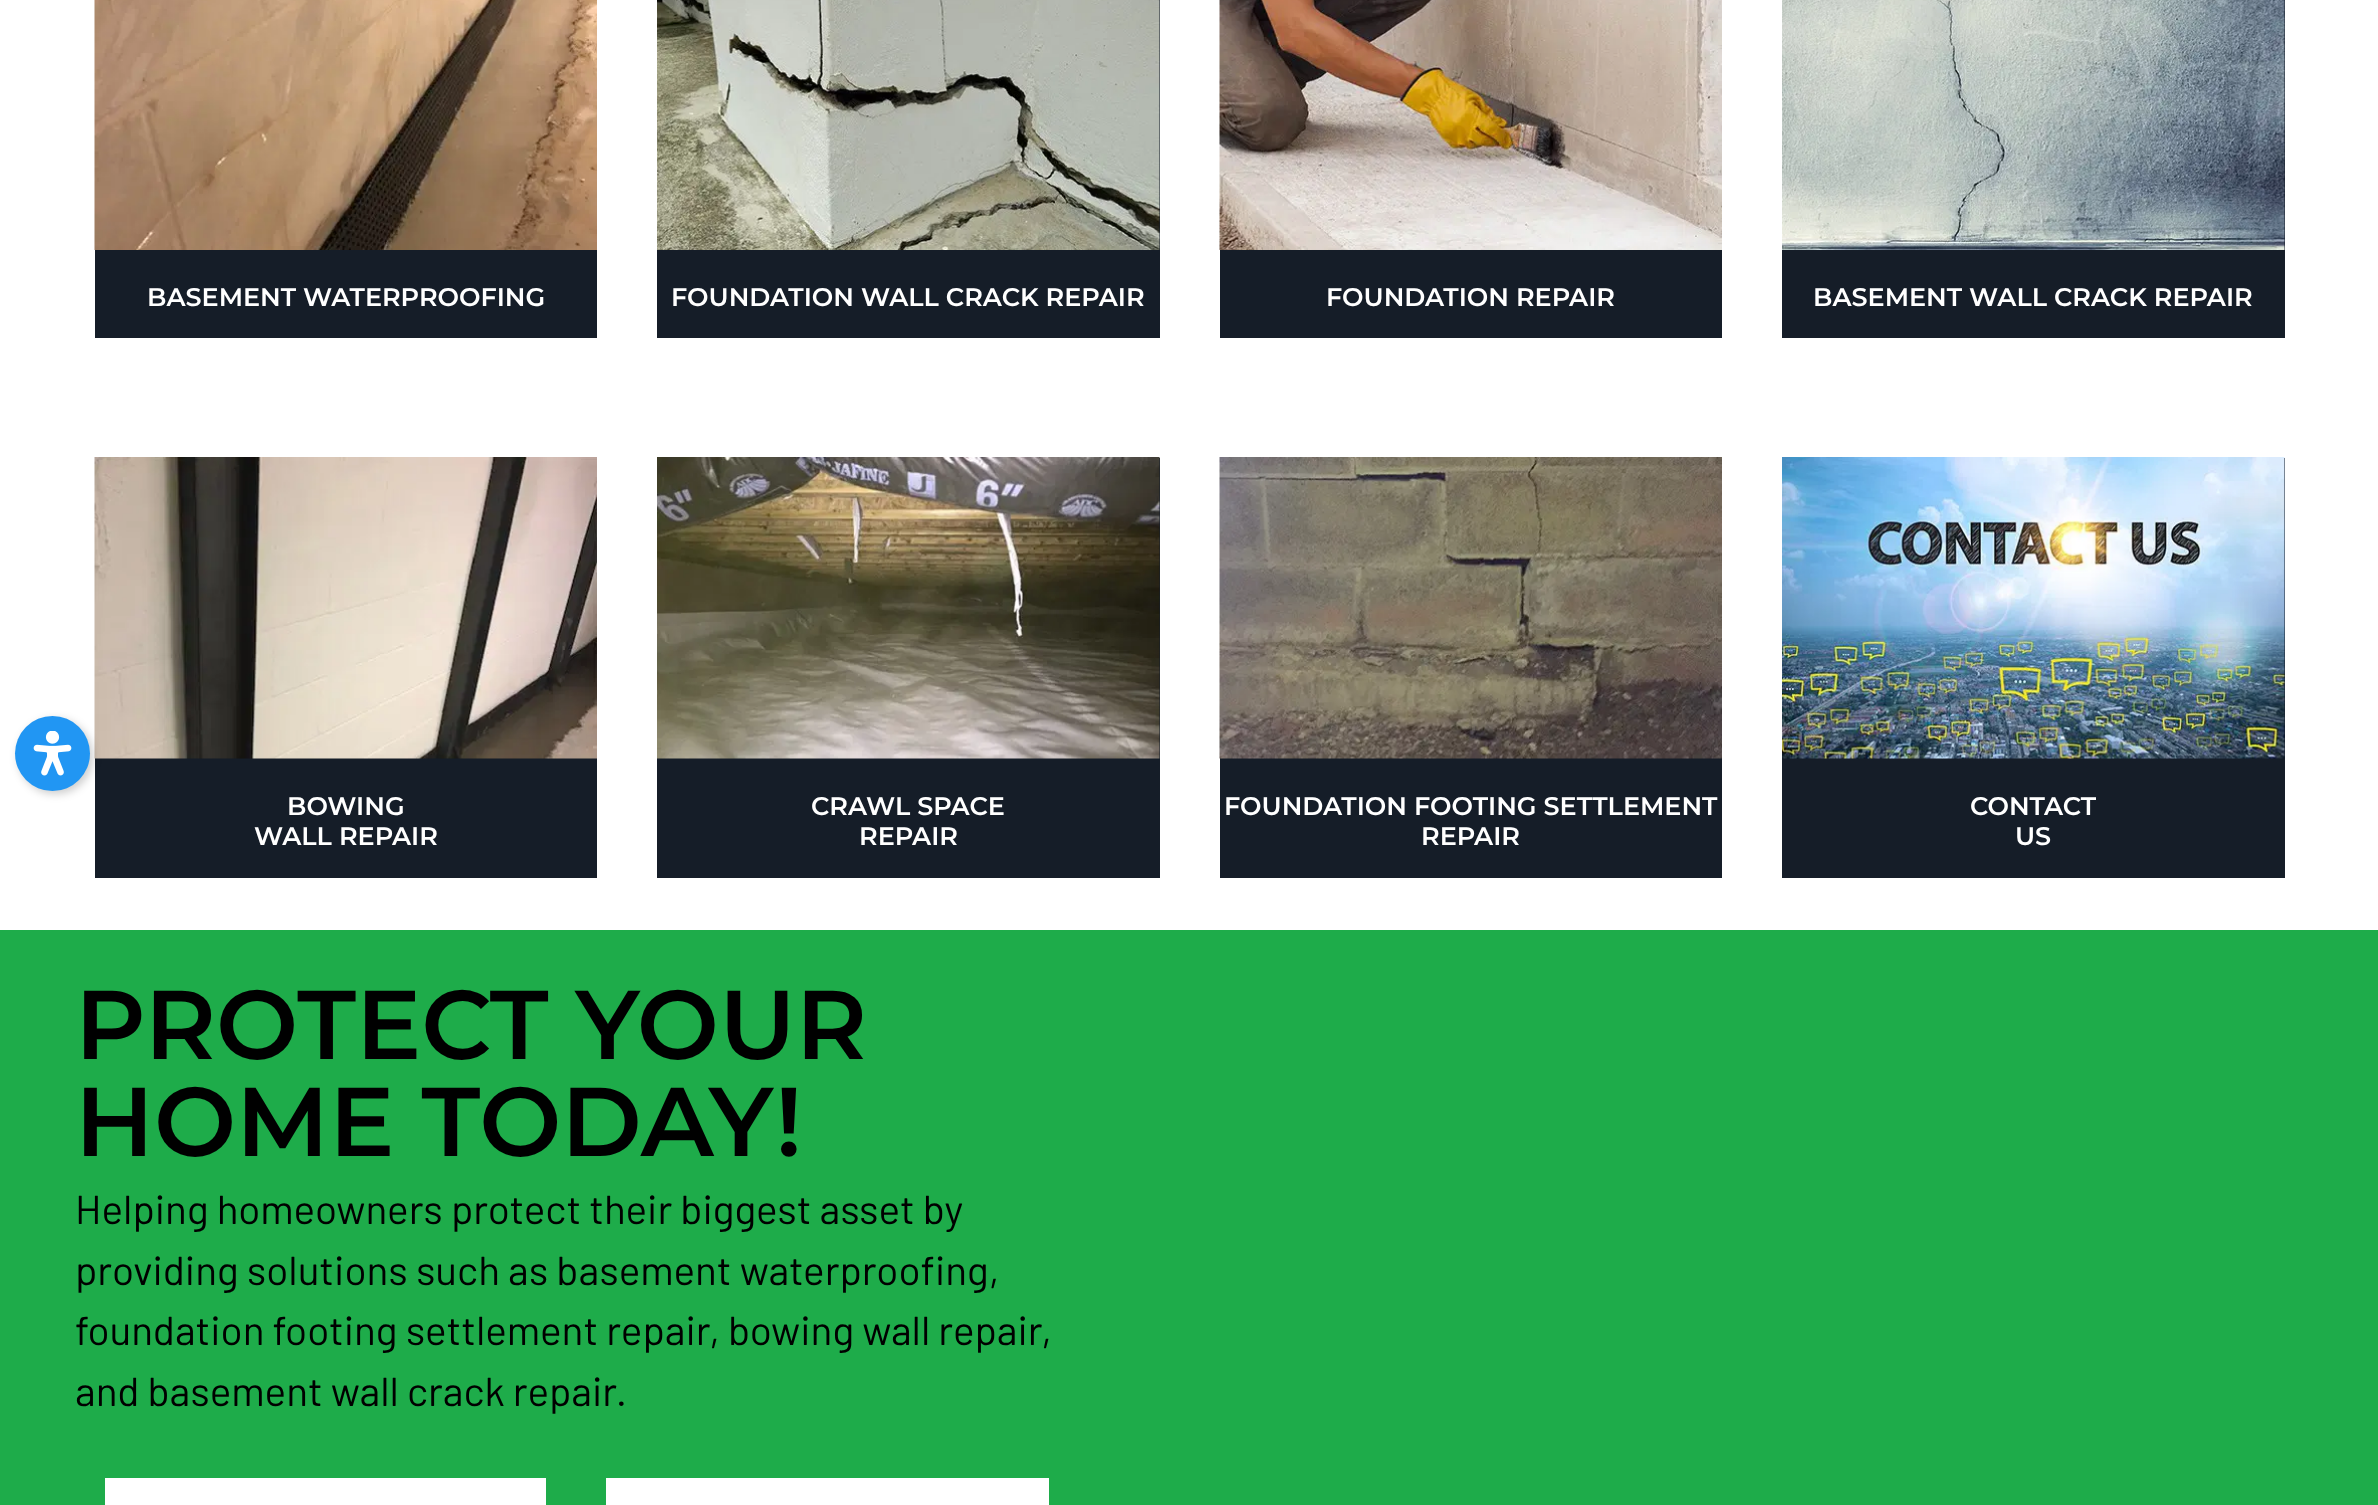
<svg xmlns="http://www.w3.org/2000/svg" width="2378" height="1505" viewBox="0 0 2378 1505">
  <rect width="100%" height="100%" fill="rgb(255,255,255)"/>
  <rect x="95" y="758" width="502" height="120" fill="rgb(21,29,40)"/>
  <image x="94" y="457" width="503" height="302" href="pic6.png"/>
  <rect x="18" y="719" width="75" height="75" rx="37.5" fill="rgba(0,0,0,0.2)" filter="blur(4px)"/>
  <circle cx="52.5" cy="753.5" r="37.5" fill="rgb(33,150,243)"/>
  <image x="33" y="731" width="39" height="45" href="pic1.png"/>
  <rect x="95" y="250" width="502" height="88" fill="rgb(21,29,40)"/>
  <image x="94" y="0" width="503" height="250" href="pic2.png"/>
  <text x="147" y="306" font-family="Montserrat" font-size="25.5" font-weight="600" fill="rgb(255,255,255)">BASEMENT WATERPROOFING</text>
  <rect x="657" y="0" width="503" height="338" fill="rgb(21,29,40)"/>
  <image x="657" y="0" width="503" height="250" href="pic3.png"/>
  <text x="671" y="306" font-family="Montserrat" font-size="25.5" font-weight="600" fill="rgb(255,255,255)">FOUNDATION WALL CRACK REPAIR</text>
  <rect x="1220" y="250" width="502" height="88" fill="rgb(21,29,40)"/>
  <image x="1219" y="0" width="503" height="250" href="pic4.png"/>
  <text x="1326" y="306" font-family="Montserrat" font-size="25.5" font-weight="600" fill="rgb(255,255,255)">FOUNDATION REPAIR</text>
  <rect x="1782" y="0" width="503" height="338" fill="rgb(21,29,40)"/>
  <image x="1782" y="0" width="503" height="250" href="pic5.png"/>
  <g font-family="Montserrat" font-size="25.5" font-weight="600" fill="rgb(255,255,255)">
    <text x="1813" y="306">BASEMENT WALL CRACK REPAIR</text>
    <text x="287" y="815">BOWING</text>
    <text x="254" y="845">WALL REPAIR</text>
  </g>
  <rect x="657" y="458" width="503" height="420" fill="rgb(21,29,40)"/>
  <image x="657" y="457" width="503" height="302" href="pic7.png"/>
  <g font-family="Montserrat" font-size="25.5" font-weight="600" fill="rgb(255,255,255)">
    <text x="811" y="815">CRAWL SPACE</text>
    <text x="859" y="845">REPAIR</text>
  </g>
  <rect x="1220" y="758" width="502" height="120" fill="rgb(21,29,40)"/>
  <image x="1219" y="457" width="503" height="302" href="pic8.png"/>
  <g font-family="Montserrat" font-size="25.5" font-weight="600" fill="rgb(255,255,255)">
    <text x="1224" y="815">FOUNDATION FOOTING SETTLEMENT</text>
    <text x="1421" y="845">REPAIR</text>
  </g>
  <rect x="1782" y="458" width="503" height="420" fill="rgb(21,29,40)"/>
  <image x="1782" y="457" width="503" height="302" href="pic9.png"/>
  <g font-family="Montserrat" font-size="25.5" font-weight="600" fill="rgb(255,255,255)">
    <text x="1970" y="815">CONTACT</text>
    <text x="2015" y="845">US</text>
  </g>
  <rect x="0" y="930" width="2378" height="575" fill="rgb(30,172,74)"/>
  <g font-family="Montserrat" font-size="97.5" font-weight="600" fill="rgb(0,0,0)">
    <text>
      <tspan x="75" y="1059">PROTECT YOUR</tspan>
      <tspan x="75" y="1156">HOME TODAY!</tspan>
    </text>
  </g>
  <g font-family="Barlow" font-size="40.5" fill="rgb(0,0,0)">
    <text>
      <tspan x="75" y="1224">Helping homeowners protect their biggest asset by</tspan>
      <tspan x="75" y="1285">providing solutions such as basement waterproofing,</tspan>
      <tspan x="75" y="1345">foundation footing settlement repair, bowing wall repair,</tspan>
      <tspan x="75" y="1406">and basement wall crack repair.</tspan>
    </text>
  </g>
  <rect x="105" y="1478" width="441" height="27" fill="rgb(255,255,255)"/>
  <rect x="606" y="1478" width="443" height="27" fill="rgb(255,255,255)"/>
</svg>
